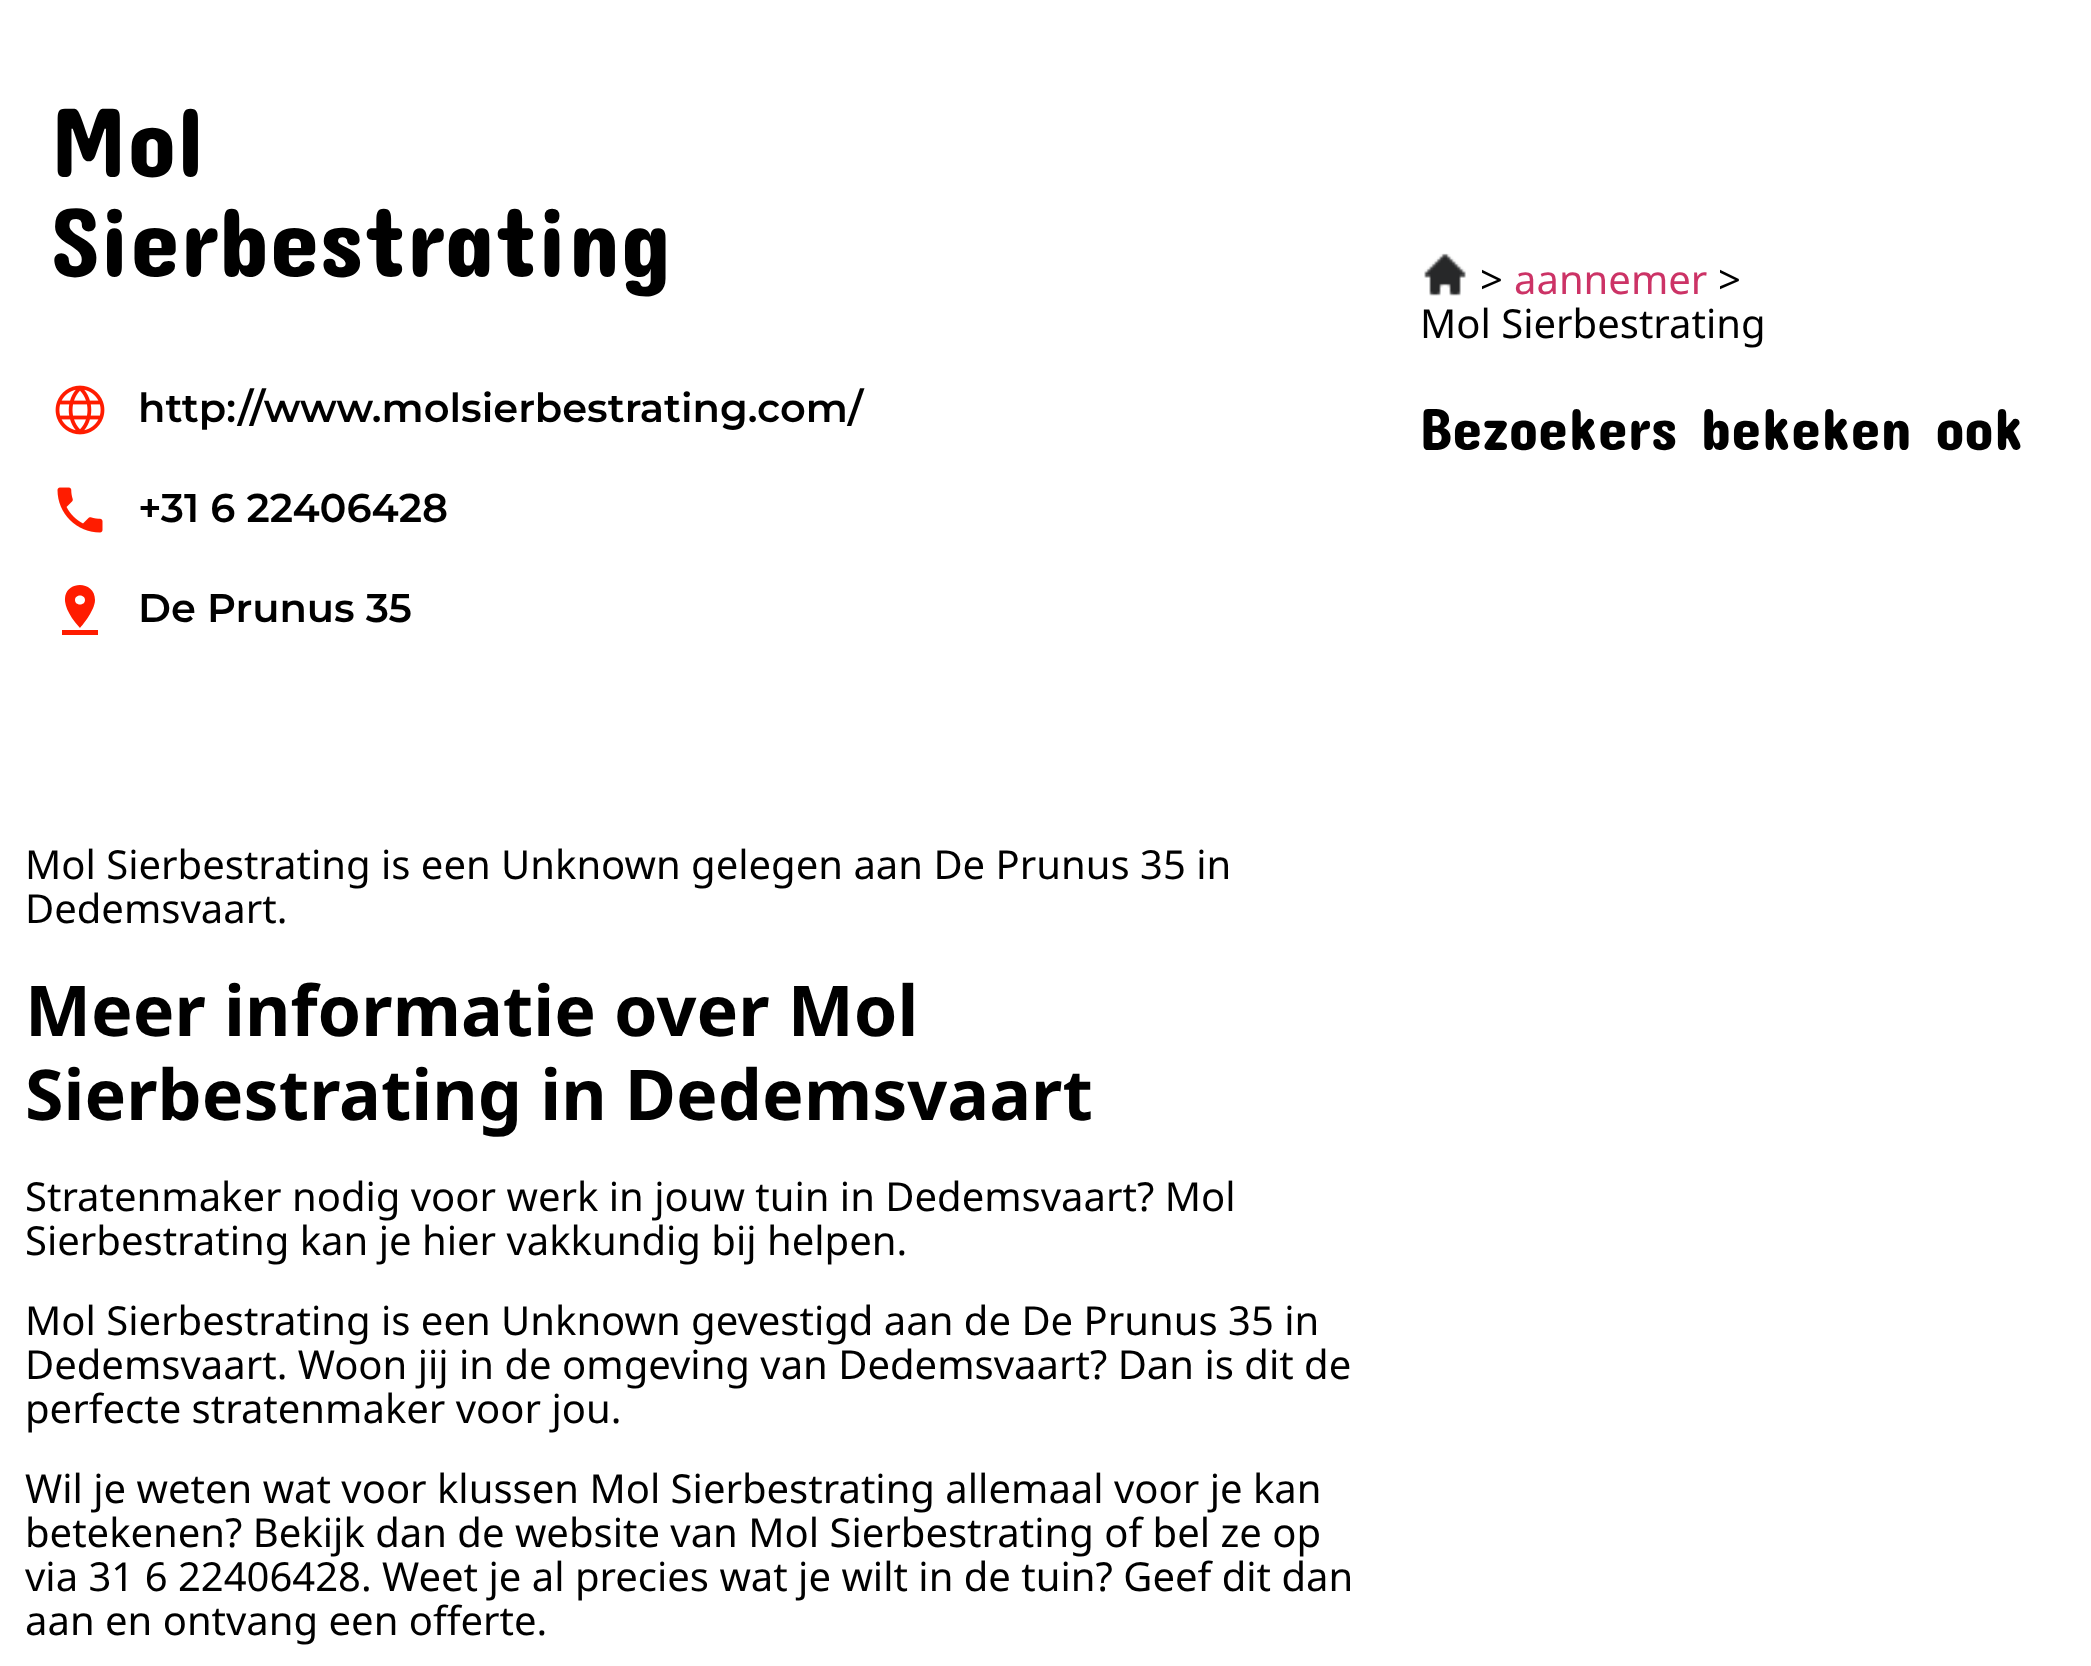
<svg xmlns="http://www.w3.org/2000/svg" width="2091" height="1666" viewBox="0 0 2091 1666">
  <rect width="100%" height="100%" fill="rgb(255,255,255)"/>
  <g font-family="Concert One" font-size="100" fill="rgb(0,0,0)">
    <text>
      <tspan x="50" y="177">Mol</tspan>
      <tspan x="50" y="277">Sierbestrating</tspan>
    </text>
  </g>
  <image x="55" y="385" width="50" height="50" href="pic1.png"/>
  <text x="138" y="422" font-family="Montserrat" font-size="40" font-weight="600" fill="rgb(0,0,0)">http://www.molsierbestrating.com/</text>
  <image x="57" y="487" width="46" height="46" href="pic2.png"/>
  <text x="138" y="522" font-family="Montserrat" font-size="40" font-weight="600" fill="rgb(0,0,0)">+31 6 22406428</text>
  <path d="M95 600C95 573 39 583 80 628C80 628 95 611 95 600ZM75 600C75 594 85 594 85 600C85 606 75 606 75 600ZM62 630V635H98V630Z" fill="rgb(255,28,0)"/>
  <text x="138" y="622" font-family="Montserrat" font-size="40" font-weight="600" fill="rgb(0,0,0)">De Prunus 35</text>
  <g font-family="Noto Sans" font-size="40" fill="rgb(0,0,0)">
    <text>
      <tspan x="25" y="879">Mol Sierbestrating is een Unknown gelegen aan De Prunus 35 in</tspan>
      <tspan x="25" y="923">Dedemsvaart.</tspan>
    </text>
  </g>
  <g font-family="Noto Sans" font-size="70" font-weight="bold" fill="rgb(0,0,0)">
    <text>
      <tspan x="25" y="1036">Meer informatie over Mol</tspan>
      <tspan x="25" y="1120">Sierbestrating in Dedemsvaart</tspan>
    </text>
  </g>
  <g font-family="Noto Sans" font-size="40" fill="rgb(0,0,0)">
    <text>
      <tspan x="25" y="1211">Stratenmaker nodig voor werk in jouw tuin in Dedemsvaart? Mol</tspan>
      <tspan x="25" y="1255">Sierbestrating kan je hier vakkundig bij helpen.</tspan>
    </text>
    <text>
      <tspan x="25" y="1335">Mol Sierbestrating is een Unknown gevestigd aan de De Prunus 35 in</tspan>
      <tspan x="25" y="1379">Dedemsvaart. Woon jij in de omgeving van Dedemsvaart? Dan is dit de</tspan>
      <tspan x="25" y="1423">perfecte stratenmaker voor jou.</tspan>
    </text>
    <text>
      <tspan x="25" y="1503">Wil je weten wat voor klussen Mol Sierbestrating allemaal voor je kan</tspan>
      <tspan x="25" y="1547">betekenen? Bekijk dan de website van Mol Sierbestrating of bel ze op</tspan>
      <tspan x="25" y="1591">via 31 6 22406428. Weet je al precies wat je wilt in de tuin? Geef dit dan</tspan>
      <tspan x="25" y="1635">aan en ontvang een offerte.</tspan>
    </text>
  </g>
  <image x="1424" y="253" width="42" height="43" href="pic3.png"/>
  <text x="1480" y="294" font-family="Noto Sans" font-size="40" fill="rgb(0,0,0)">&gt;</text>
  <text x="1514" y="294" font-family="Noto Sans" font-size="40" fill="rgb(204,51,102)">aannemer</text>
  <g font-family="Noto Sans" font-size="40" fill="rgb(0,0,0)">
    <text x="1718" y="294">&gt;</text>
    <text x="1420" y="338">Mol Sierbestrating</text>
  </g>
  <text x="1420" y="450" font-family="Concert One" font-size="60" fill="rgb(0,0,0)">Bezoekers bekeken ook</text>
</svg>
